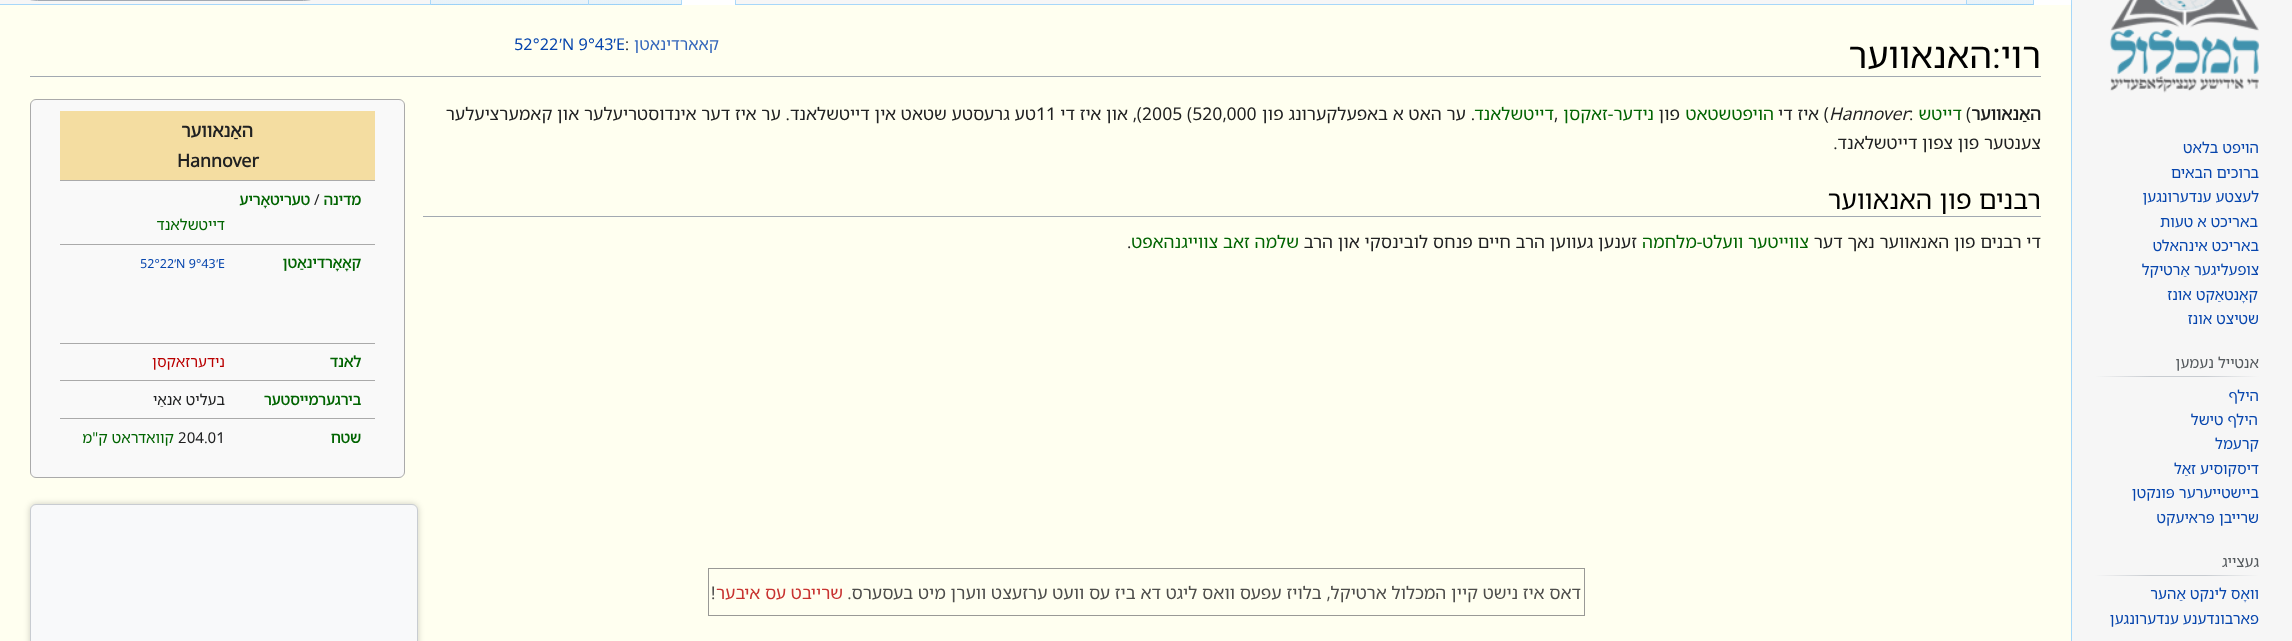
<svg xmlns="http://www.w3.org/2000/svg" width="2292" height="641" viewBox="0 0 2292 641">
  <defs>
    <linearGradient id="g1" gradientUnits="userSpaceOnUse" x1="2072" y1="-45" x2="2072" y2="5"><stop offset="0" stop-color="rgb(167,215,249)" stop-opacity="0"/><stop offset="1" stop-color="rgb(167,215,249)"/></linearGradient>
    <linearGradient id="g2" gradientUnits="userSpaceOnUse" x1="2033" y1="-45" x2="2033" y2="5"><stop offset="0" stop-color="rgb(255,255,255)"/><stop offset="1" stop-color="rgb(167,215,249)"/></linearGradient>
    <linearGradient id="g3" gradientUnits="userSpaceOnUse" x1="1999" y1="5" x2="1999" y2="-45"><stop offset="0" stop-color="rgb(119,193,246)"/><stop offset="0.03" stop-color="rgb(232,242,248)"/><stop offset="1" stop-color="rgb(255,255,255)"/></linearGradient>
    <linearGradient id="g4" gradientUnits="userSpaceOnUse" x1="1967" y1="-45" x2="1967" y2="5"><stop offset="0" stop-color="rgb(167,215,249)" stop-opacity="0"/><stop offset="1" stop-color="rgb(167,215,249)"/></linearGradient>
    <linearGradient id="g5" gradientUnits="userSpaceOnUse" x1="736" y1="-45" x2="736" y2="5"><stop offset="0" stop-color="rgb(167,215,249)" stop-opacity="0"/><stop offset="1" stop-color="rgb(167,215,249)"/></linearGradient>
    <linearGradient id="g6" gradientUnits="userSpaceOnUse" x1="682" y1="-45" x2="682" y2="5"><stop offset="0" stop-color="rgb(255,255,255)"/><stop offset="1" stop-color="rgb(167,215,249)"/></linearGradient>
    <linearGradient id="g7" gradientUnits="userSpaceOnUse" x1="634" y1="5" x2="634" y2="-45"><stop offset="0" stop-color="rgb(119,193,246)"/><stop offset="0.03" stop-color="rgb(232,242,248)"/><stop offset="1" stop-color="rgb(255,255,255)"/></linearGradient>
    <linearGradient id="g8" gradientUnits="userSpaceOnUse" x1="588" y1="-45" x2="588" y2="5"><stop offset="0" stop-color="rgb(167,215,249)" stop-opacity="0"/><stop offset="1" stop-color="rgb(167,215,249)"/></linearGradient>
    <linearGradient id="g9" gradientUnits="userSpaceOnUse" x1="509" y1="5" x2="509" y2="-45"><stop offset="0" stop-color="rgb(119,193,246)"/><stop offset="0.03" stop-color="rgb(232,242,248)"/><stop offset="1" stop-color="rgb(255,255,255)"/></linearGradient>
    <linearGradient id="g10" gradientUnits="userSpaceOnUse" x1="431" y1="-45" x2="431" y2="5"><stop offset="0" stop-color="rgb(167,215,249)" stop-opacity="0"/><stop offset="1" stop-color="rgb(167,215,249)"/></linearGradient>
    <linearGradient id="g11" gradientUnits="userSpaceOnUse" x1="2259" y1="377" x2="2095" y2="377"><stop offset="0" stop-color="rgb(246,246,246)"/><stop offset="0.33" stop-color="rgb(200,204,209)"/><stop offset="0.66" stop-color="rgb(200,204,209)"/><stop offset="1" stop-color="rgb(246,246,246)"/></linearGradient>
    <linearGradient id="g12" gradientUnits="userSpaceOnUse" x1="2259" y1="576" x2="2095" y2="576"><stop offset="0" stop-color="rgb(246,246,246)"/><stop offset="0.33" stop-color="rgb(200,204,209)"/><stop offset="0.66" stop-color="rgb(200,204,209)"/><stop offset="1" stop-color="rgb(246,246,246)"/></linearGradient>
  </defs>
  <rect width="100%" height="100%" fill="rgb(246,246,246)"/>
  <path d="M0 5H2071V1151C2071 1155 2068 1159 2064 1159H9C4 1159 0 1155 0 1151Z" fill="rgb(255,255,240)"/>
  <path d="M0 4H2072V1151C2072 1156 2069 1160 2064 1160H9C4 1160 0 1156 0 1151ZM0 5H2071V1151C2071 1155 2068 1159 2064 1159H9C4 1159 0 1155 0 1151Z" fill="rgb(167,215,249)" fill-rule="evenodd"/>
  <rect x="2071" y="0" width="1" height="5" fill="url(#g1)"/>
  <rect x="2033" y="0" width="38" height="5" fill="rgb(255,255,255)"/>
  <rect x="2033" y="0" width="1" height="5" fill="url(#g2)"/>
  <rect x="1966" y="0" width="67" height="5" fill="url(#g3)"/>
  <rect x="1966" y="0" width="1" height="5" fill="url(#g4)"/>
  <rect x="20.5" y="-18.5" width="300" height="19" rx="17" fill="none" stroke="rgb(162,169,177)"/>
  <rect x="735" y="0" width="1" height="5" fill="url(#g5)"/>
  <rect x="681" y="0" width="54" height="5" fill="rgb(255,255,255)"/>
  <rect x="681" y="0" width="1" height="5" fill="url(#g6)"/>
  <rect x="588" y="0" width="93" height="5" fill="url(#g7)"/>
  <rect x="588" y="0" width="1" height="5" fill="url(#g8)"/>
  <rect x="430" y="0" width="158" height="5" fill="url(#g9)"/>
  <rect x="430" y="0" width="1" height="5" fill="url(#g10)"/>
  <image x="2109" y="0" width="151" height="93" href="pic1.png"/>
  <g font-family="Noto Sans Hebrew" font-size="15" font-weight="100" direction="rtl" fill="rgb(6,69,173)">
    <text>
      <tspan x="2259" y="153">הויפט בלאט</tspan>
      <tspan x="2259" y="178">ברוכים הבאים</tspan>
      <tspan x="2259" y="202">לעצטע ענדערונגען</tspan>
    </text>
    <text x="2258" y="227">באריכט א טעות</text>
    <text>
      <tspan x="2259" y="251">באריכט אינהאלט</tspan>
      <tspan x="2259" y="275">צופעליגער אַרטיקל</tspan>
    </text>
    <text x="2258" y="300">קאָנטאַקט אונז</text>
    <text x="2259" y="324">שטיצט אונז</text>
  </g>
  <rect x="2095" y="376" width="164" height="1" fill="url(#g11)"/>
  <text x="2259" y="368" font-family="Noto Sans Hebrew" font-size="15" font-weight="100" direction="rtl" fill="rgb(84,89,93)">אנטייל נעמען</text>
  <g font-family="Noto Sans Hebrew" font-size="15" font-weight="100" direction="rtl" fill="rgb(6,69,173)">
    <text x="2259" y="401">הילף</text>
    <text x="2258" y="425">הילף טישל</text>
    <text>
      <tspan x="2259" y="449">קרעמל</tspan>
      <tspan x="2259" y="474">דיסקוסיע זאַל</tspan>
      <tspan x="2259" y="498">ביישטייערער פּונקטן</tspan>
      <tspan x="2259" y="523">שרייבן פּראיעקט</tspan>
    </text>
  </g>
  <rect x="2095" y="575" width="164" height="1" fill="url(#g12)"/>
  <text x="2259" y="567" font-family="Noto Sans Hebrew" font-size="15" font-weight="100" direction="rtl" fill="rgb(84,89,93)">געצייג</text>
  <g font-family="Noto Sans Hebrew" font-size="15" font-weight="100" direction="rtl" fill="rgb(6,69,173)">
    <text>
      <tspan x="2259" y="599">וואָס לינקט אַהער</tspan>
      <tspan x="2259" y="624">פארבונדענע ענדערונגען</tspan>
    </text>
  </g>
  <rect x="30" y="76" width="2011" height="1" fill="rgb(162,169,177)"/>
  <text x="2041" y="68" font-family="Noto Sans Hebrew" font-size="36" font-weight="100" direction="rtl" fill="rgb(0,0,0)">רוי</text>
  <text x="1992" y="68" font-family="Noto Sans Hebrew" font-size="36" font-weight="100" fill="rgb(0,0,0)">:</text>
  <text x="1992" y="68" font-family="Noto Sans Hebrew" font-size="36" font-weight="100" direction="rtl" fill="rgb(0,0,0)">האנאווער</text>
  <text x="719" y="50" font-family="Noto Sans Hebrew" font-size="16.25" font-weight="100" direction="rtl" fill="rgb(51,102,187)">קאארדינאטן</text>
  <text x="625" y="50" font-family="Noto Sans Hebrew" font-size="16.25" font-weight="100" fill="rgb(32,33,34)">:</text>
  <text x="616" y="50" font-family="Noto Sans Hebrew" font-size="16.25" font-weight="100" fill="rgb(6,69,173)">E</text>
  <text x="613" y="50" font-family="Liberation Sans" font-size="16.25" fill="rgb(6,69,173)">′</text>
  <text x="562" y="50" font-family="Noto Sans Hebrew" font-size="16.25" font-weight="100" fill="rgb(6,69,173)">N 9°43</text>
  <text x="559" y="50" font-family="Liberation Sans" font-size="16.25" fill="rgb(6,69,173)">′</text>
  <text x="514" y="50" font-family="Noto Sans Hebrew" font-size="16.25" font-weight="100" fill="rgb(6,69,173)">52°22</text>
  <text x="2041" y="120" font-family="Noto Sans Hebrew" font-size="17.5" font-weight="bold" direction="rtl" fill="rgb(32,33,34)">האַנאווער</text>
  <text x="1966" y="120" font-family="Noto Sans Hebrew" font-size="17.5" font-weight="100" fill="rgb(32,33,34)">(</text>
  <text x="1962" y="120" font-family="Noto Sans Hebrew" font-size="17.5" font-weight="100" direction="rtl" fill="rgb(0,100,0)">דייטש</text>
  <text x="1909" y="120" font-family="Noto Sans Hebrew" font-size="17.5" font-weight="100" fill="rgb(32,33,34)">:</text>
  <text x="1829" y="120" font-family="Noto Sans Hebrew" font-size="17.5" font-weight="100" font-style="italic" fill="rgb(32,33,34)">Hannover</text>
  <text x="1829" y="120" font-family="Noto Sans Hebrew" font-size="17.5" font-weight="100" direction="rtl" fill="rgb(32,33,34)">) איז די</text>
  <text x="1774" y="120" font-family="Noto Sans Hebrew" font-size="17.5" font-weight="100" direction="rtl" fill="rgb(0,100,0)">הויפטשטאט</text>
  <text x="1680" y="120" font-family="Noto Sans Hebrew" font-size="17.5" font-weight="100" direction="rtl" fill="rgb(32,33,34)">פון</text>
  <text x="1654" y="120" font-family="Noto Sans Hebrew" font-size="17.5" font-weight="100" direction="rtl" fill="rgb(0,100,0)">נידער-זאקסן</text>
  <text x="1554" y="120" font-family="Noto Sans Hebrew" font-size="17.5" font-weight="100" fill="rgb(32,33,34)">,</text>
  <text x="1554" y="120" font-family="Noto Sans Hebrew" font-size="17.5" font-weight="100" direction="rtl" fill="rgb(0,100,0)">דייטשלאנד</text>
  <text x="1475" y="120" font-family="Noto Sans Hebrew" font-size="17.5" font-weight="100" direction="rtl" fill="rgb(32,33,34)">. ער האט א באפעלקערונג פון</text>
  <text x="1142" y="120" font-family="Noto Sans Hebrew" font-size="17.5" font-weight="100" fill="rgb(32,33,34)">2005 (520,000</text>
  <text x="1142" y="120" font-family="Noto Sans Hebrew" font-size="17.5" font-weight="100" direction="rtl" fill="rgb(32,33,34)">), און איז די</text>
  <text x="1036" y="120" font-family="Noto Sans Hebrew" font-size="17.5" font-weight="100" fill="rgb(32,33,34)">11</text>
  <g font-family="Noto Sans Hebrew" font-size="17.5" font-weight="100" direction="rtl" fill="rgb(32,33,34)">
    <text x="1036" y="120">טע גרעסטע שטאט אין דייטשלאנד. ער איז דער אינדוסטריעלער און קאמערציעלער</text>
    <text x="2041" y="149">צענטער פון צפון דייטשלאנד.</text>
  </g>
  <rect x="30.5" y="99.5" width="374" height="378" rx="5.5" fill="rgb(249,249,249)" stroke="rgb(170,170,170)"/>
  <rect x="60" y="111" width="315" height="69" fill="rgb(244,221,161)"/>
  <text x="253" y="137" font-family="Noto Sans Hebrew" font-size="18" font-weight="bold" direction="rtl" fill="rgb(32,33,34)">האַנאווער</text>
  <text x="177" y="167" font-family="Noto Sans Hebrew" font-size="18" font-weight="bold" fill="rgb(32,33,34)">Hannover</text>
  <rect x="60" y="180" width="315" height="1" fill="rgb(170,170,170)"/>
  <text x="361" y="205" font-family="Noto Sans Hebrew" font-size="15" font-weight="bold" direction="rtl" fill="rgb(0,100,0)">מדינה</text>
  <text x="314" y="205" font-family="Noto Sans Hebrew" font-size="15" font-weight="100" fill="rgb(32,33,34)">/</text>
  <text x="310" y="205" font-family="Noto Sans Hebrew" font-size="15" font-weight="bold" direction="rtl" fill="rgb(0,100,0)">טעריטאָריע</text>
  <text x="225" y="230" font-family="Noto Sans Hebrew" font-size="15" font-weight="100" direction="rtl" fill="rgb(0,100,0)">דייטשלאנד</text>
  <rect x="60" y="244" width="315" height="1" fill="rgb(170,170,170)"/>
  <text x="361" y="268" font-family="Noto Sans Hebrew" font-size="15" font-weight="bold" direction="rtl" fill="rgb(0,100,0)">קאָאָרדינאַטן</text>
  <text x="218" y="268" font-family="Noto Sans Hebrew" font-size="12.5" font-weight="100" fill="rgb(6,69,173)">E</text>
  <text x="216" y="268" font-family="Liberation Sans" font-size="12.5" fill="rgb(6,69,173)">′</text>
  <text x="176" y="268" font-family="Noto Sans Hebrew" font-size="12.5" font-weight="100" fill="rgb(6,69,173)">N 9°43</text>
  <text x="174" y="268" font-family="Liberation Sans" font-size="12.5" fill="rgb(6,69,173)">′</text>
  <text x="140" y="268" font-family="Noto Sans Hebrew" font-size="12.5" font-weight="100" fill="rgb(6,69,173)">52°22</text>
  <rect x="60" y="343" width="315" height="1" fill="rgb(170,170,170)"/>
  <text x="361" y="367" font-family="Noto Sans Hebrew" font-size="15" font-weight="bold" direction="rtl" fill="rgb(0,100,0)">לאנד</text>
  <text x="225" y="367" font-family="Noto Sans Hebrew" font-size="15" font-weight="100" direction="rtl" fill="rgb(186,0,0)">נידערזאקסן</text>
  <rect x="60" y="380" width="315" height="1" fill="rgb(170,170,170)"/>
  <text x="361" y="405" font-family="Noto Sans Hebrew" font-size="15" font-weight="bold" direction="rtl" fill="rgb(0,100,0)">בירגערמייסטער</text>
  <text x="225" y="405" font-family="Noto Sans Hebrew" font-size="15" font-weight="100" direction="rtl" fill="rgb(32,33,34)">בעליט אנאַי</text>
  <rect x="60" y="418" width="315" height="1" fill="rgb(170,170,170)"/>
  <text x="361" y="443" font-family="Noto Sans Hebrew" font-size="15" font-weight="bold" direction="rtl" fill="rgb(0,100,0)">שטח</text>
  <text x="178" y="443" font-family="Noto Sans Hebrew" font-size="15" font-weight="100" fill="rgb(32,33,34)">204.01</text>
  <text x="174" y="443" font-family="Noto Sans Hebrew" font-size="15" font-weight="100" direction="rtl" fill="rgb(0,100,0)">קוואדראט ק"מ</text>
  <rect x="423" y="216" width="1618" height="1" fill="rgb(162,169,177)"/>
  <text x="2041" y="209" font-family="Noto Sans Hebrew" font-size="26.25" font-weight="100" direction="rtl" fill="rgb(0,0,0)">רבנים פון האנאווער</text>
  <text x="2041" y="248" font-family="Noto Sans Hebrew" font-size="17.5" font-weight="100" direction="rtl" fill="rgb(32,33,34)">די רבנים פון האנאווער נאך דער</text>
  <text x="1809" y="248" font-family="Noto Sans Hebrew" font-size="17.5" font-weight="100" direction="rtl" fill="rgb(0,100,0)">צווייטער וועלט-מלחמה</text>
  <text x="1637" y="248" font-family="Noto Sans Hebrew" font-size="17.5" font-weight="100" direction="rtl" fill="rgb(32,33,34)">זענען געווען הרב חיים פנחס לובינסקי און הרב</text>
  <text x="1299" y="248" font-family="Noto Sans Hebrew" font-size="17.5" font-weight="100" direction="rtl" fill="rgb(0,100,0)">שלמה זאב צווייגנהאפט</text>
  <text x="1127" y="248" font-family="Noto Sans Hebrew" font-size="17.5" font-weight="100" fill="rgb(32,33,34)">.</text>
  <rect x="708.5" y="568.5" width="876" height="47" fill="none" stroke="rgb(153,153,150)"/>
  <text x="1581" y="599" font-family="Noto Sans Hebrew" font-size="17.5" font-weight="100" direction="rtl" fill="rgb(77,77,75)">דאס איז נישט קיין המכלול ארטיקל, בלויז עפעס וואס ליגט דא ביז עס וועט ערזעצט ווערן מיט בעסערס.</text>
  <text x="843" y="599" font-family="Noto Sans Hebrew" font-size="17.5" font-weight="100" direction="rtl" fill="rgb(200,51,48)">שרייבט עס איבער</text>
  <text x="711" y="599" font-family="Noto Sans Hebrew" font-size="17.5" font-weight="100" fill="rgb(77,77,75)">!</text>
  <rect x="30" y="504" width="388" height="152" rx="6" fill="rgba(0,0,0,0.2)" filter="blur(3px)"/>
  <rect x="30.5" y="504.5" width="387" height="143" rx="5.5" fill="rgb(248,249,250)" stroke="rgb(200,204,209)"/>
</svg>
